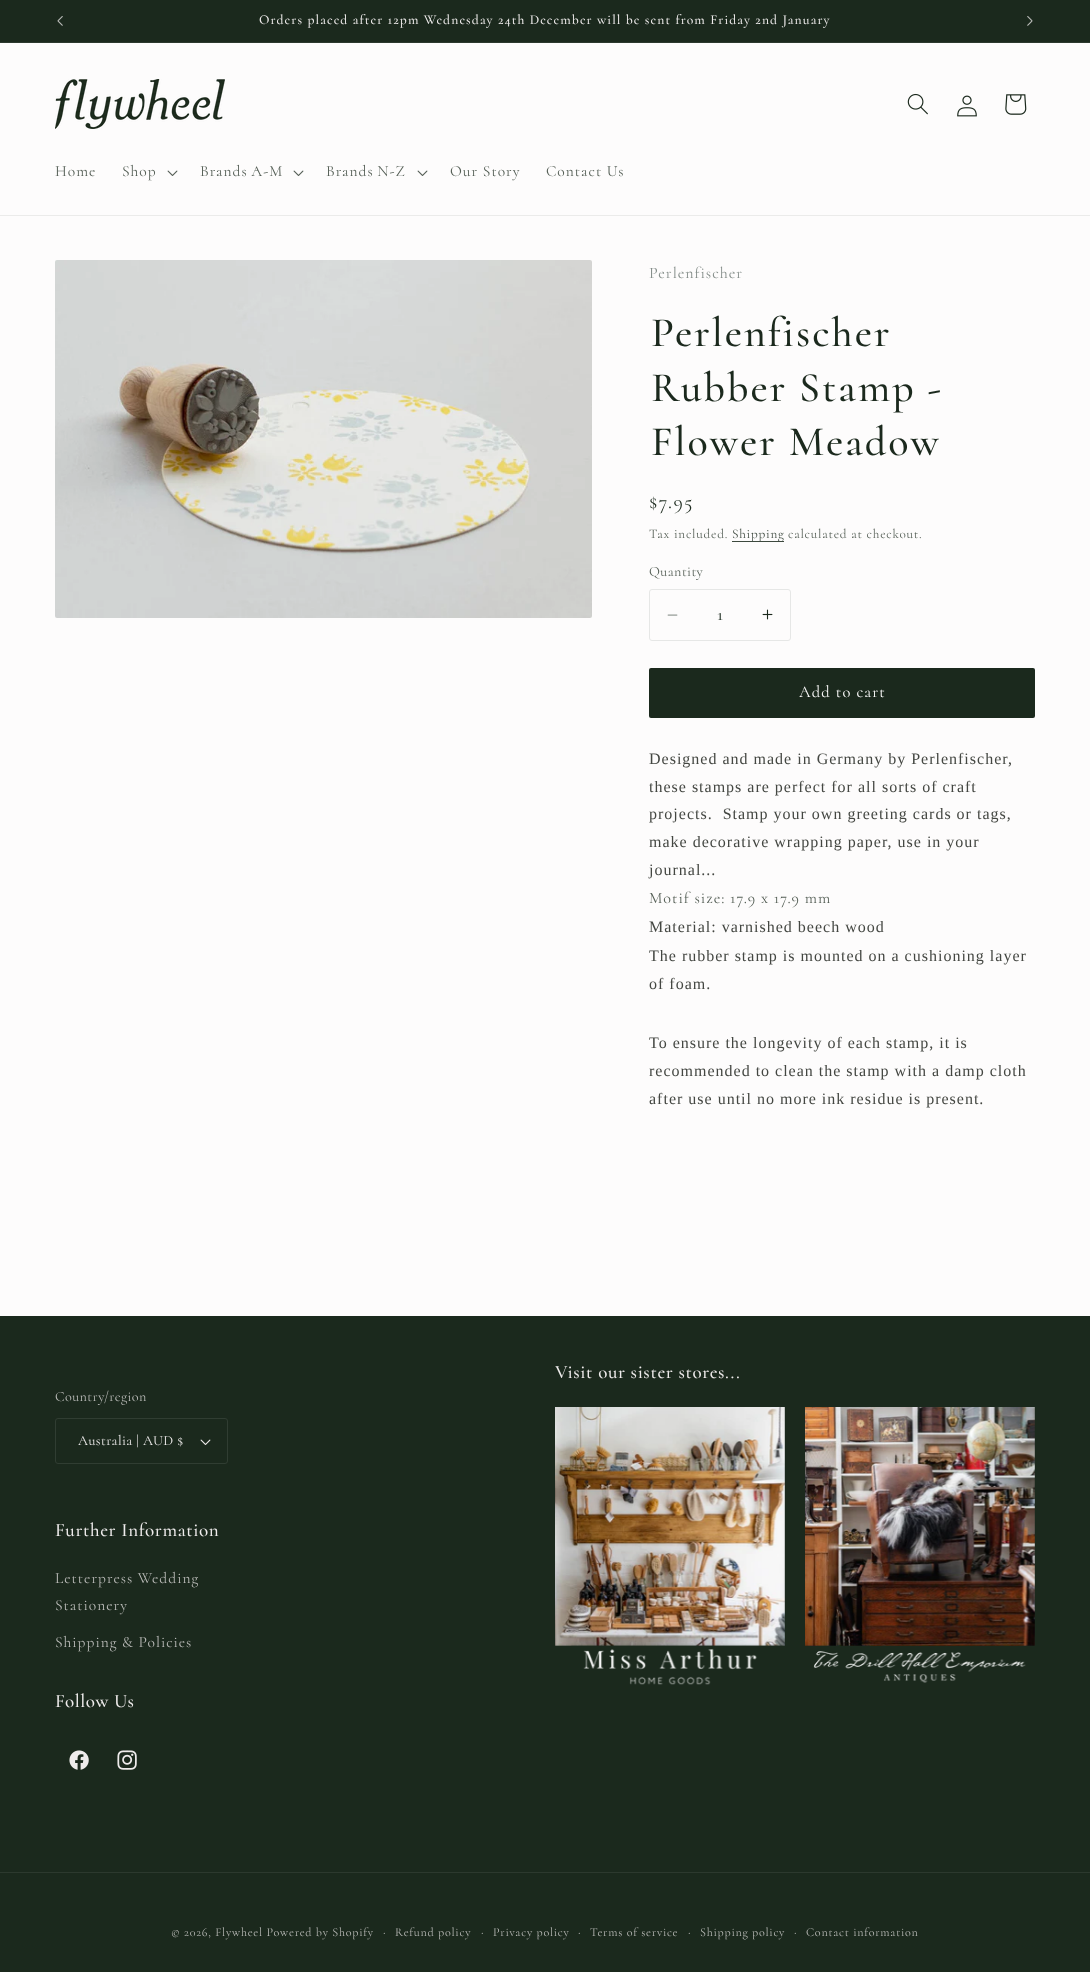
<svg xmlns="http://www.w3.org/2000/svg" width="1090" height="1972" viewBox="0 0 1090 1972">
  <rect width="100%" height="100%" fill="rgb(253,252,252)"/>
  <rect x="0" y="0" width="1090" height="42" fill="rgb(27,41,29)"/>
  <rect x="0" y="42" width="1090" height="1" fill="rgb(44,57,46)"/>
  <image x="57" y="16" width="6" height="10" href="pic1.png"/>
  <text x="259" y="24" font-family="Cormorant" font-size="13.65" font-weight="500" letter-spacing="1.1" fill="rgb(239,236,236)">Orders placed after 12pm Wednesday 24th December will be sent from Friday 2nd January</text>
  <image x="1027" y="16" width="6" height="10" href="pic2.png"/>
  <rect x="0" y="215" width="1090" height="1" fill="rgb(235,235,234)"/>
  <image x="55" y="79" width="170" height="50" href="pic3.png"/>
  <image x="907" y="93" width="21" height="22" href="pic4.png"/>
  <image x="957" y="95" width="20" height="22" href="pic5.png"/>
  <image x="1005" y="94" width="22" height="21" href="pic6.png"/>
  <g font-family="Cormorant" font-size="15.5" letter-spacing="1" fill="rgb(84,94,85)">
    <text x="55" y="176">Home</text>
    <text x="122" y="176">Shop</text>
  </g>
  <image x="167" y="170" width="11" height="6" href="pic7.png"/>
  <text x="200" y="176" word-spacing="-1" font-family="Cormorant" font-size="15.5" letter-spacing="1" fill="rgb(84,94,85)">Brands A-M</text>
  <image x="293" y="170" width="11" height="6" href="pic7.png"/>
  <text x="326" y="176" word-spacing="-1" font-family="Cormorant" font-size="15.5" letter-spacing="1" fill="rgb(84,94,85)">Brands N-Z</text>
  <image x="417" y="170" width="11" height="6" href="pic7.png"/>
  <g font-family="Cormorant" font-size="15.5" letter-spacing="1" fill="rgb(84,94,85)">
    <text x="450" y="176">Our Story</text>
    <text x="546" y="176">Contact Us</text>
  </g>
  <image x="55" y="260" width="537" height="358" href="pic8.png"/>
  <text x="649" y="278" font-family="Cormorant" font-size="16" letter-spacing="1" fill="rgb(132,141,137)">Perlenfischer</text>
  <g font-family="Cormorant" font-size="42" font-weight="500" letter-spacing="2" fill="rgb(27,41,29)">
    <text>
      <tspan x="651" y="346">Perlenfischer</tspan>
      <tspan x="651" y="401">Rubber Stamp -</tspan>
      <tspan x="651" y="455">Flower Meadow</tspan>
    </text>
  </g>
  <text x="649" y="508" font-family="Cormorant" font-size="20" letter-spacing="1.5" fill="rgb(27,41,29)">$7.95</text>
  <text x="649" y="538" font-family="Cormorant" font-size="13.25" letter-spacing="0.75" fill="rgb(84,94,85)">Tax included.</text>
  <rect x="732" y="541" width="52" height="1" fill="rgb(61,73,62)"/>
  <text x="732" y="538" font-family="Cormorant" font-size="13.25" letter-spacing="0.75" fill="rgb(59,71,61)">Shipping</text>
  <text x="788" y="538" font-family="Cormorant" font-size="13.25" letter-spacing="0.75" fill="rgb(84,94,85)">calculated at checkout.</text>
  <text x="649" y="576" font-family="Cormorant" font-size="14.25" letter-spacing="0.4" fill="rgb(84,94,85)">Quantity</text>
  <image x="667" y="614" width="11" height="2" href="pic9.png"/>
  <image x="762" y="609" width="11" height="11" href="pic10.png"/>
  <rect x="649.5" y="589.5" width="141" height="51" rx="2.5" fill="none" stroke="rgb(230,231,230)"/>
  <text x="717" y="620" font-family="Cormorant" font-size="18" font-weight="500" fill="rgb(59,71,61)">1</text>
  <rect x="649" y="668" width="386" height="50" rx="2" fill="rgb(27,41,29)"/>
  <text x="799" y="697" font-family="Cormorant" font-size="16.5" letter-spacing="1.1" fill="rgb(253,252,252)">Add to cart</text>
  <g font-family="Liberation Serif" font-size="16" letter-spacing="1" fill="rgb(68,71,66)">
    <text xml:space="preserve"><tspan x="649" y="764">Designed and made in Germany by Perlenfischer,</tspan><tspan x="649" y="792">these stamps are perfect for all sorts of craft</tspan><tspan x="649" y="819">projects.  Stamp your own greeting cards or tags,</tspan><tspan x="649" y="847">make decorative wrapping paper, use in your</tspan><tspan x="649" y="875">journal...</tspan></text>
  </g>
  <text x="649" y="903" font-family="Cormorant" font-size="16" letter-spacing="1" fill="rgb(84,94,85)">Motif size: 17.9 x 17.9 mm</text>
  <g font-family="Liberation Serif" font-size="16" letter-spacing="1" fill="rgb(68,71,66)">
    <text>
      <tspan x="649" y="932">Material: varnished beech wood</tspan>
      <tspan x="649" y="961">The rubber stamp is mounted on a cushioning layer</tspan>
      <tspan x="649" y="989">of foam.</tspan>
    </text>
    <text>
      <tspan x="649" y="1048">To ensure the longevity of each stamp, it is</tspan>
      <tspan x="649" y="1076">recommended to clean the stamp with a damp cloth</tspan>
      <tspan x="649" y="1104">after use until no more ink residue is present.</tspan>
    </text>
  </g>
  <rect x="0" y="1316" width="1090" height="656" fill="rgb(27,41,29)"/>
  <text x="555" y="1378" font-family="Cormorant" font-size="19" font-weight="500" letter-spacing="0.6" fill="rgb(239,236,236)">Visit our sister stores...</text>
  <image x="555" y="1407" width="230" height="278" href="pic11.png"/>
  <text x="55" y="1401" font-family="Cormorant" font-size="14.25" letter-spacing="0.4" fill="rgb(186,187,184)">Country/region</text>
  <image x="200" y="1439" width="11" height="6" href="pic12.png"/>
  <rect x="55.5" y="1418.5" width="172" height="45" rx="2.5" fill="none" stroke="rgb(48,61,50)"/>
  <text x="78" y="1445" font-family="Cormorant" font-size="14.25" letter-spacing="0.4" fill="rgb(239,236,236)">Australia | AUD $</text>
  <text x="55" y="1536" font-family="Cormorant" font-size="19" font-weight="500" letter-spacing="0.6" fill="rgb(239,236,236)">Further Information</text>
  <g font-family="Cormorant" font-size="15.5" letter-spacing="1" fill="rgb(186,187,184)">
    <text>
      <tspan x="55" y="1583">Letterpress Wedding</tspan>
      <tspan x="55" y="1610">Stationery</tspan>
    </text>
    <text x="55" y="1647">Shipping &amp; Policies</text>
  </g>
  <text x="55" y="1707" font-family="Cormorant" font-size="19" font-weight="500" letter-spacing="0.6" fill="rgb(239,236,236)">Follow Us</text>
  <image x="69" y="1750" width="20" height="20" href="pic13.png"/>
  <image x="117" y="1750" width="20" height="20" href="pic14.png"/>
  <image x="805" y="1407" width="230" height="276" href="pic15.png"/>
  <rect x="0" y="1872" width="1090" height="1" fill="rgb(44,57,46)"/>
  <text x="171" y="1936" font-family="Cormorant" font-size="12.1" letter-spacing="0.75" fill="rgb(186,187,184)">© 2026, Flywheel Powered by Shopify</text>
  <text x="383" y="1936" font-family="Cormorant" font-size="13.25" letter-spacing="0.75" fill="rgb(186,187,184)">·</text>
  <text x="395" y="1936" font-family="Cormorant" font-size="12.1" letter-spacing="0.75" fill="rgb(186,187,184)">Refund policy</text>
  <text x="481" y="1936" font-family="Cormorant" font-size="13.25" letter-spacing="0.75" fill="rgb(186,187,184)">·</text>
  <text x="493" y="1936" font-family="Cormorant" font-size="12.1" letter-spacing="0.75" fill="rgb(186,187,184)">Privacy policy</text>
  <text x="578" y="1936" font-family="Cormorant" font-size="13.25" letter-spacing="0.75" fill="rgb(186,187,184)">·</text>
  <text x="590" y="1936" font-family="Cormorant" font-size="12.1" letter-spacing="0.75" fill="rgb(186,187,184)">Terms of service</text>
  <text x="688" y="1936" font-family="Cormorant" font-size="13.25" letter-spacing="0.75" fill="rgb(186,187,184)">·</text>
  <text x="700" y="1936" font-family="Cormorant" font-size="12.1" letter-spacing="0.75" fill="rgb(186,187,184)">Shipping policy</text>
  <text x="794" y="1936" font-family="Cormorant" font-size="13.25" letter-spacing="0.75" fill="rgb(186,187,184)">·</text>
  <text x="806" y="1936" font-family="Cormorant" font-size="12.1" letter-spacing="0.75" fill="rgb(186,187,184)">Contact information</text>
</svg>
